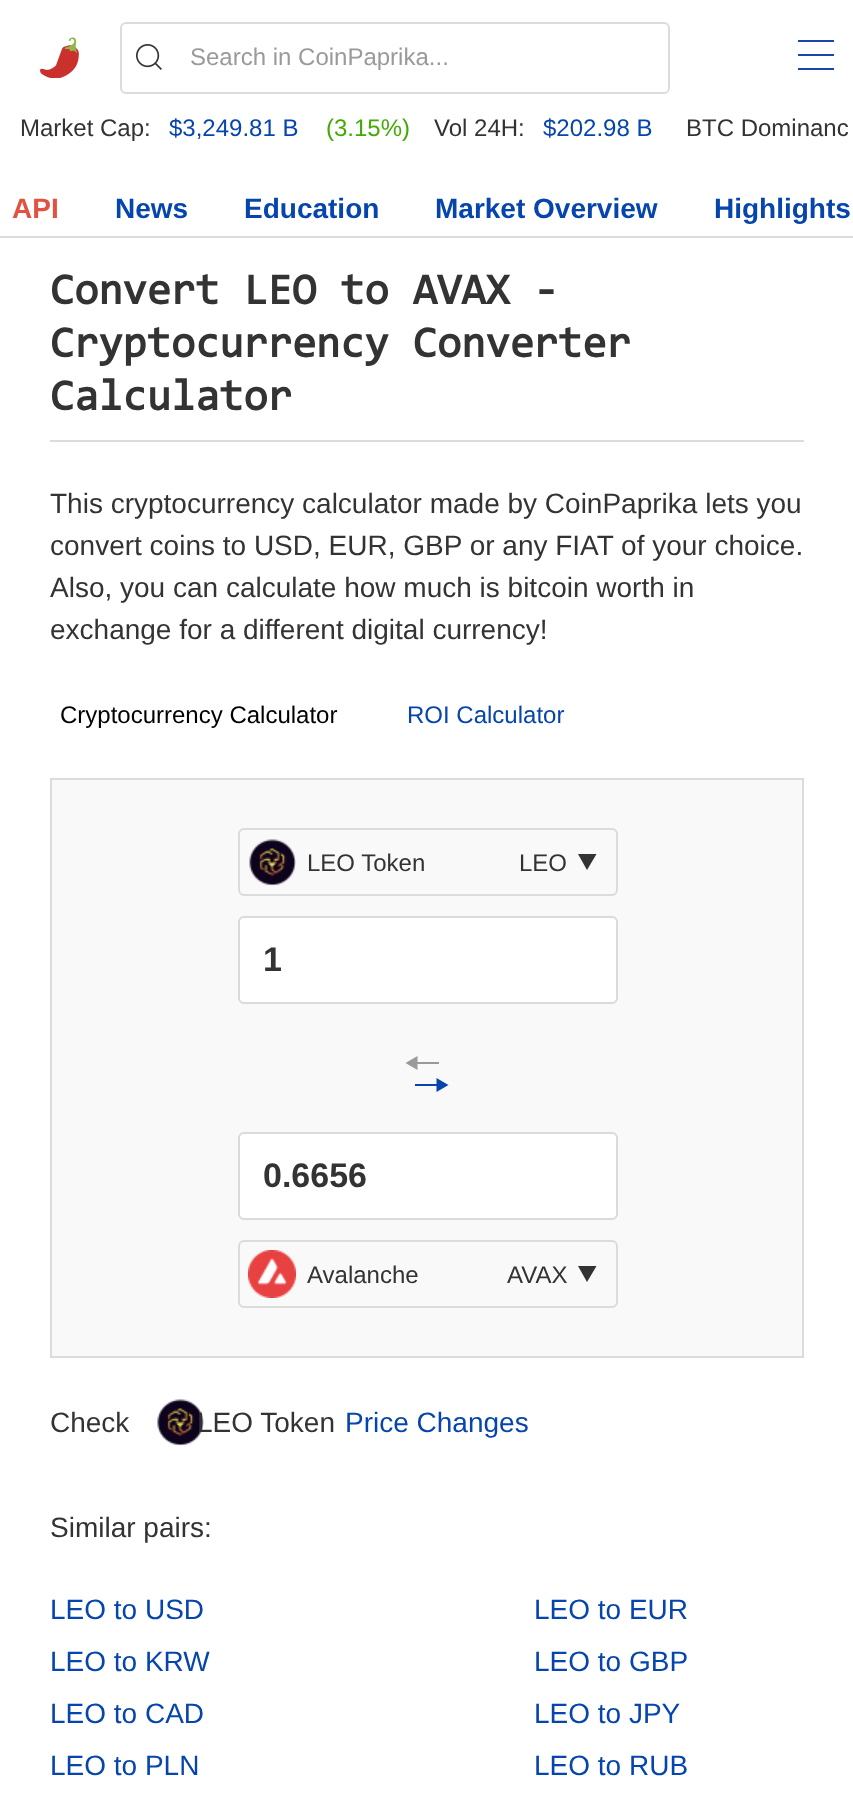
<svg xmlns="http://www.w3.org/2000/svg" width="853" height="1801" viewBox="0 0 853 1801">
  <rect width="100%" height="100%" fill="rgb(255,255,255)"/>
  <image x="40" y="37" width="39" height="41" href="pic1.png"/>
  <rect x="121" y="23" width="548" height="70" rx="5" fill="none" stroke="rgb(220,220,220)" stroke-width="2"/>
  <image x="136" y="44" width="26" height="26" href="pic2.png"/>
  <text x="190" y="65" font-family="Liberation Sans" font-size="24" fill="rgb(154,154,154)">Search in CoinPaprika...</text>
  <rect x="798" y="40" width="36" height="2" fill="rgb(26,70,167)"/>
  <rect x="798" y="54" width="36" height="2" fill="rgb(26,70,167)"/>
  <rect x="798" y="68" width="36" height="2" fill="rgb(26,70,167)"/>
  <text x="20" y="136" font-family="Liberation Sans" font-size="24" fill="rgb(51,51,51)">Market Cap:</text>
  <text x="169" y="136" font-family="Liberation Sans" font-size="24" fill="rgb(6,69,173)">$3,249.81 B</text>
  <text x="326" y="136" font-family="Liberation Sans" font-size="24" fill="rgb(67,170,5)">(3.15%)</text>
  <text x="434" y="136" font-family="Liberation Sans" font-size="24" fill="rgb(51,51,51)">Vol 24H:</text>
  <text x="543" y="136" font-family="Liberation Sans" font-size="24" fill="rgb(6,69,173)">$202.98 B</text>
  <text x="686" y="136" font-family="Liberation Sans" font-size="24" fill="rgb(51,51,51)">BTC Dominanc</text>
  <text x="12" y="218" font-family="Liberation Sans" font-size="28" font-weight="bold" fill="rgb(225,82,65)">API</text>
  <g font-family="Liberation Sans" font-size="28" font-weight="bold" fill="rgb(6,69,173)">
    <text x="115" y="218">News</text>
    <text x="244" y="218">Education</text>
    <text x="435" y="218">Market Overview</text>
    <text x="714" y="218">Highlights</text>
  </g>
  <rect x="0" y="236" width="853" height="2" fill="rgb(220,220,220)"/>
  <rect x="50" y="440" width="754" height="2" fill="rgb(220,220,220)"/>
  <g font-family="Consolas" font-size="44" font-weight="bold" fill="rgb(51,51,51)">
    <text>
      <tspan x="50" y="304">Convert LEO to AVAX -</tspan>
      <tspan x="50" y="357">Cryptocurrency Converter</tspan>
      <tspan x="50" y="410">Calculator</tspan>
    </text>
  </g>
  <g font-family="Liberation Sans" font-size="28" fill="rgb(51,51,51)">
    <text>
      <tspan x="50" y="513">This cryptocurrency calculator made by CoinPaprika lets you</tspan>
      <tspan x="50" y="555">convert coins to USD, EUR, GBP or any FIAT of your choice.</tspan>
      <tspan x="50" y="597">Also, you can calculate how much is bitcoin worth in</tspan>
      <tspan x="50" y="639">exchange for a different digital currency!</tspan>
    </text>
  </g>
  <text x="60" y="723" font-family="Liberation Sans" font-size="24" fill="rgb(0,0,0)">Cryptocurrency Calculator</text>
  <text x="407" y="723" font-family="Liberation Sans" font-size="24" fill="rgb(6,69,173)">ROI Calculator</text>
  <rect x="51" y="779" width="752" height="578" fill="rgb(249,249,249)" stroke="rgb(220,220,220)" stroke-width="2"/>
  <rect x="239" y="829" width="378" height="66" rx="5" fill="none" stroke="rgb(220,220,220)" stroke-width="2"/>
  <image x="249" y="839" width="47" height="47" href="pic3.png"/>
  <g font-family="Liberation Sans" font-size="24" fill="rgb(51,51,51)">
    <text x="307" y="871">LEO Token</text>
    <text x="519" y="871">LEO</text>
  </g>
  <path d="M587 870L578 854H596.5Z" fill="rgb(51,51,51)"/>
  <rect x="239" y="917" width="378" height="86" rx="5" fill="rgb(255,255,255)" stroke="rgb(218,218,218)" stroke-width="2"/>
  <text x="263" y="971" font-family="Liberation Sans" font-size="34" font-weight="bold" fill="rgb(51,51,51)">1</text>
  <path d="M417.5 1062V1056L405.5 1063L417.5 1070V1064H439V1062Z" fill="rgb(154,154,154)"/>
  <path d="M436.5 1084V1078L448.5 1085L436.5 1092V1086H415V1084Z" fill="rgb(6,69,173)"/>
  <rect x="239" y="1133" width="378" height="86" rx="5" fill="rgb(255,255,255)" stroke="rgb(218,218,218)" stroke-width="2"/>
  <text x="263" y="1187" font-family="Liberation Sans" font-size="34" font-weight="bold" fill="rgb(51,51,51)">0.6656</text>
  <rect x="239" y="1241" width="378" height="66" rx="5" fill="none" stroke="rgb(220,220,220)" stroke-width="2"/>
  <image x="248" y="1250" width="48" height="48" href="pic4.png"/>
  <g font-family="Liberation Sans" font-size="24" fill="rgb(51,51,51)">
    <text x="307" y="1283">Avalanche</text>
    <text x="507" y="1283">AVAX</text>
  </g>
  <path d="M587 1282L578 1266H596.5Z" fill="rgb(51,51,51)"/>
  <text x="50" y="1432" font-family="Liberation Sans" font-size="28" fill="rgb(51,51,51)">Check</text>
  <image x="157" y="1399" width="47" height="47" href="pic5.png"/>
  <text x="197" y="1432" font-family="Liberation Sans" font-size="28" fill="rgb(51,51,51)">LEO Token</text>
  <text x="345" y="1432" font-family="Liberation Sans" font-size="28" fill="rgb(6,69,173)">Price Changes</text>
  <text x="50" y="1537" font-family="Liberation Sans" font-size="28" fill="rgb(51,51,51)">Similar pairs:</text>
  <g font-family="Liberation Sans" font-size="28" fill="rgb(6,69,173)">
    <text x="50" y="1619">LEO to USD</text>
    <text x="534" y="1619">LEO to EUR</text>
    <text x="50" y="1671">LEO to KRW</text>
    <text x="534" y="1671">LEO to GBP</text>
    <text x="50" y="1723">LEO to CAD</text>
    <text x="534" y="1723">LEO to JPY</text>
    <text x="50" y="1775">LEO to PLN</text>
    <text x="534" y="1775">LEO to RUB</text>
  </g>
</svg>
